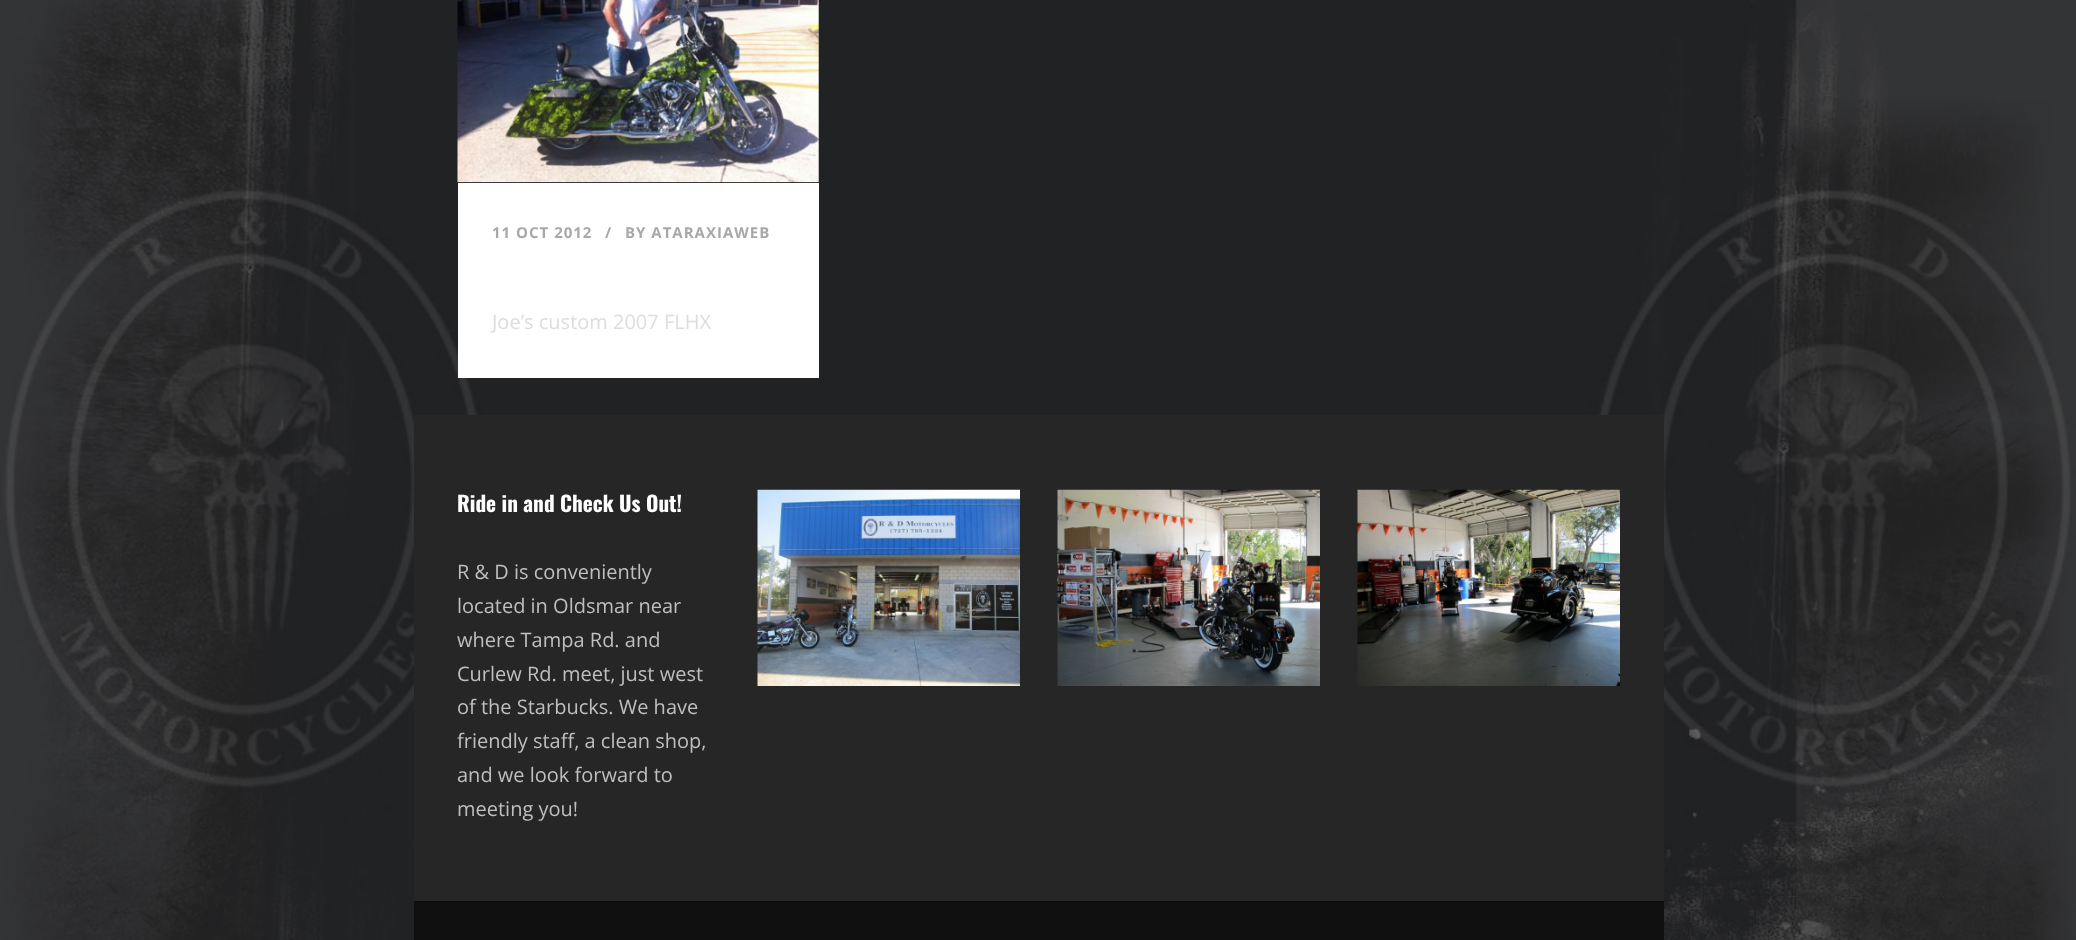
<svg xmlns="http://www.w3.org/2000/svg" width="2076" height="940" viewBox="0 0 2076 940">
  <rect width="100%" height="100%" fill="rgb(255,255,255)"/>
  <image x="0" y="0" width="2076" height="940" href="pic1.png"/>
  <rect x="458" y="183" width="361" height="195" fill="rgb(255,255,255)"/>
  <rect x="458" y="0" width="361" height="183" fill="rgb(0,0,0)"/>
  <image x="457" y="0" width="362" height="183" href="pic2.png"/>
  <g font-family="Open Sans" font-size="15" font-weight="bold" letter-spacing="1" fill="rgb(168,168,168)">
    <text x="492" y="238">11 OCT 2012</text>
    <text x="605" y="238">/</text>
    <text x="625" y="238">BY ATARAXIAWEB</text>
  </g>
  <text x="492" y="329" font-family="Open Sans" font-size="20" fill="rgb(221,221,221)">Joe’s custom 2007 FLHX</text>
  <rect x="414" y="415" width="1250" height="486" fill="rgb(38,38,38)"/>
  <text x="457" y="512" font-family="Oswald" font-size="21.25" font-weight="bold" fill="rgb(255,255,255)">Ride in and Check Us Out!</text>
  <g font-family="Open Sans" font-size="20" fill="rgb(191,191,191)">
    <text>
      <tspan x="457" y="579">R &amp; D is conveniently</tspan>
      <tspan x="457" y="613">located in Oldsmar near</tspan>
      <tspan x="457" y="647">where Tampa Rd. and</tspan>
      <tspan x="457" y="681">Curlew Rd. meet, just west</tspan>
      <tspan x="457" y="714">of the Starbucks. We have</tspan>
      <tspan x="457" y="748">friendly staff, a clean shop,</tspan>
      <tspan x="457" y="782">and we look forward to</tspan>
      <tspan x="457" y="816">meeting you!</tspan>
    </text>
  </g>
  <image x="757" y="489" width="263" height="197" href="pic3.png"/>
  <image x="1057" y="489" width="263" height="197" href="pic4.png"/>
  <image x="1357" y="489" width="263" height="197" href="pic5.png"/>
  <rect x="414" y="901" width="1250" height="39" fill="rgb(15,15,15)"/>
</svg>
